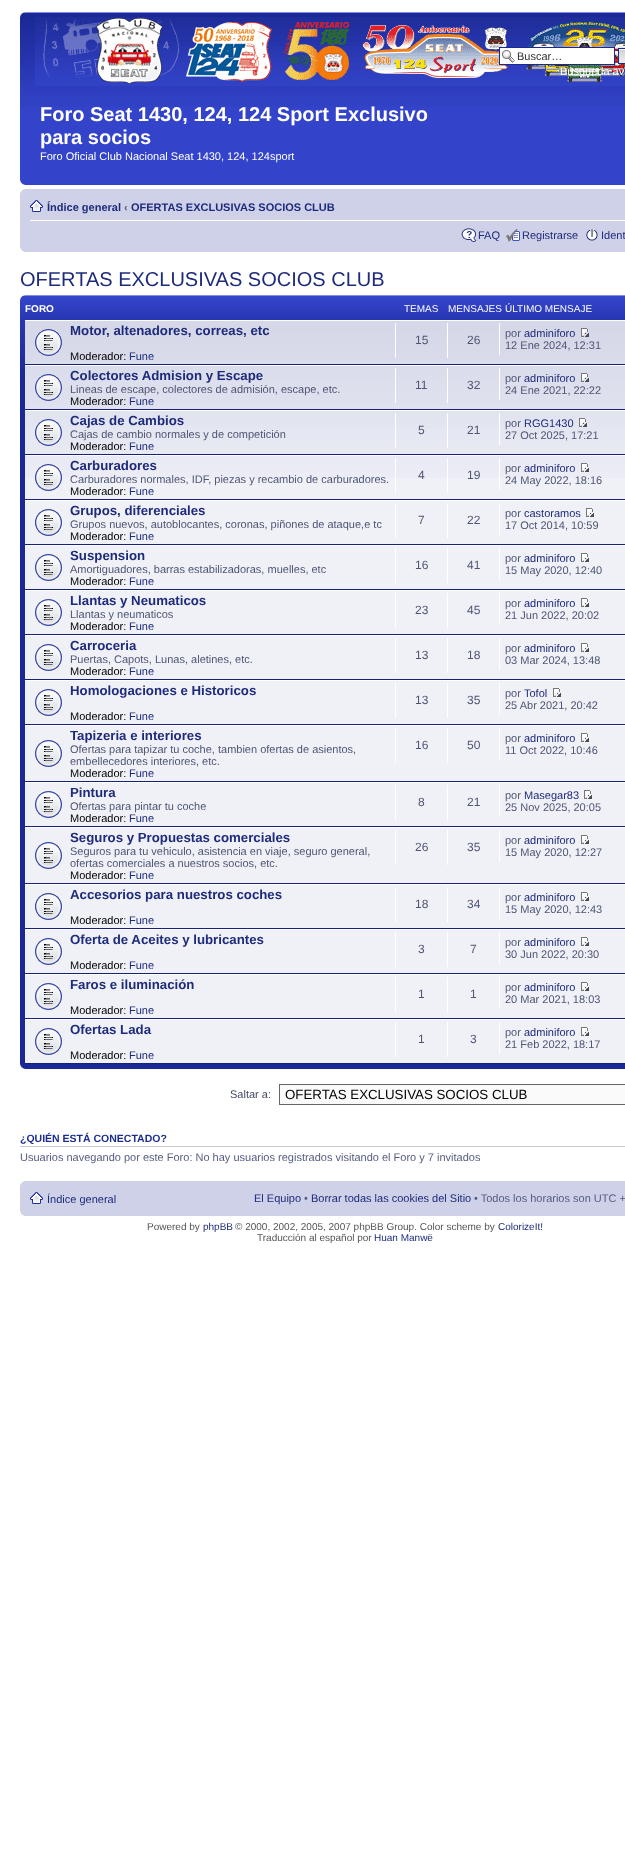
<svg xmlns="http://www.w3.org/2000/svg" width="625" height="1873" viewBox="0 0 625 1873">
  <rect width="100%" height="100%" fill="rgb(255,255,255)"/>
  <rect x="20" y="107" width="605" height="78" fill="rgb(51,68,202)"/>
  <image x="20" y="12" width="605" height="95" href="pic1.png"/>
  <image x="20" y="12" width="5" height="5" href="pic2.png"/>
  <image x="35" y="17" width="590" height="69" href="pic5.png"/>
  <rect x="500" y="48" width="114" height="16" fill="rgb(255,255,255)"/>
  <image x="502" y="50" width="13" height="13" href="pic3.png"/>
  <rect x="499.5" y="47.5" width="115" height="17" fill="none" stroke="rgb(27,41,149)"/>
  <text x="517" y="60" font-family="Liberation Sans" font-size="11" fill="rgb(51,51,51)">Buscar…</text>
  <image x="619" y="49" width="6" height="14" href="pic4.png"/>
  <rect x="618.5" y="48.5" width="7" height="15" fill="none" stroke="rgb(27,41,149)"/>
  <text x="560" y="75" font-family="Liberation Sans" font-size="11" fill="rgb(255,255,255)">Búsqueda ava</text>
  <g font-family="Liberation Sans" font-size="20" font-weight="bold" fill="rgb(255,255,255)">
    <text>
      <tspan x="40" y="121">Foro Seat 1430, 124, 124 Sport Exclusivo</tspan>
      <tspan x="40" y="144">para socios</tspan>
    </text>
  </g>
  <text x="40" y="160" font-family="Liberation Sans" font-size="11" fill="rgb(255,255,255)">Foro Oficial Club Nacional Seat 1430, 124, 124sport</text>
  <image x="20" y="180" width="5" height="5" href="pic6.png"/>
  <rect x="20" y="189" width="605" height="63" fill="rgb(206,209,231)"/>
  <image x="20" y="189" width="5" height="5" href="pic7.png"/>
  <rect x="30" y="220" width="595" height="1" fill="rgb(255,255,255)"/>
  <image x="30" y="200" width="13" height="12" href="pic8.png"/>
  <text x="47" y="211" font-family="Liberation Sans" font-size="11" font-weight="bold" fill="rgb(30,43,123)">Índice general</text>
  <text x="124" y="211" font-family="Liberation Sans" font-size="11" font-weight="bold" fill="rgb(85,93,128)">‹</text>
  <text x="131" y="211" font-family="Liberation Sans" font-size="11" font-weight="bold" fill="rgb(30,43,123)">OFERTAS EXCLUSIVAS SOCIOS CLUB</text>
  <image x="461" y="228" width="16" height="14" href="pic9.png"/>
  <text x="478" y="239" font-family="Liberation Sans" font-size="11" fill="rgb(30,43,123)">FAQ</text>
  <image x="506" y="229" width="14" height="13" href="pic10.png"/>
  <text x="522" y="239" font-family="Liberation Sans" font-size="11" fill="rgb(30,43,123)">Registrarse</text>
  <image x="586" y="229" width="12" height="12" href="pic11.png"/>
  <text x="601" y="239" font-family="Liberation Sans" font-size="11" fill="rgb(30,43,123)">Ident</text>
  <image x="20" y="247" width="5" height="5" href="pic12.png"/>
  <text x="20" y="286" font-family="Liberation Sans" font-size="20" fill="rgb(30,43,123)">OFERTAS EXCLUSIVAS SOCIOS CLUB</text>
  <rect x="20" y="369" width="605" height="700" fill="rgb(27,41,150)"/>
  <image x="20" y="295" width="605" height="74" href="pic13.png"/>
  <image x="20" y="295" width="5" height="5" href="pic14.png"/>
  <text x="25" y="312" font-family="Liberation Sans" font-size="10" font-weight="bold" fill="rgb(255,255,255)">FORO</text>
  <g font-family="Liberation Sans" font-size="10" fill="rgb(255,255,255)">
    <text x="404" y="312">TEMAS</text>
    <text x="448" y="312">MENSAJES</text>
    <text x="505" y="312">ÚLTIMO MENSAJE</text>
  </g>
  <rect x="25" y="478" width="600" height="585" fill="rgb(240,241,247)"/>
  <image x="25" y="321" width="600" height="157" href="pic15.png"/>
  <rect x="25" y="320" width="600" height="1" fill="rgb(255,255,255)"/>
  <rect x="25" y="364" width="600" height="1" fill="rgb(22,33,121)"/>
  <image x="35" y="329" width="27" height="27" href="pic16.png"/>
  <text x="70" y="335" font-family="Liberation Sans" font-size="13.25" font-weight="bold" fill="rgb(30,43,123)">Motor, altenadores, correas, etc</text>
  <text x="70" y="360" font-family="Liberation Sans" font-size="11" fill="rgb(0,0,0)">Moderador:</text>
  <text x="129" y="360" font-family="Liberation Sans" font-size="11" fill="rgb(30,43,123)">Fune</text>
  <rect x="395" y="323" width="1" height="35" fill="rgb(255,255,255)"/>
  <text x="415" y="344" font-family="Liberation Sans" font-size="12" fill="rgb(79,85,116)">15</text>
  <rect x="447" y="323" width="1" height="35" fill="rgb(255,255,255)"/>
  <text x="467" y="344" font-family="Liberation Sans" font-size="12" fill="rgb(79,85,116)">26</text>
  <rect x="499" y="323" width="1" height="32" fill="rgb(255,255,255)"/>
  <text x="505" y="337" font-family="Liberation Sans" font-size="11" fill="rgb(79,85,116)">por</text>
  <text x="524" y="337" font-family="Liberation Sans" font-size="11" fill="rgb(30,43,123)">adminiforo</text>
  <image x="581" y="328" width="8" height="9" href="pic17.png"/>
  <text x="505" y="349" font-family="Liberation Sans" font-size="11" fill="rgb(79,85,116)">12 Ene 2024, 12:31</text>
  <rect x="25" y="365" width="600" height="1" fill="rgb(255,255,255)"/>
  <rect x="25" y="409" width="600" height="1" fill="rgb(22,33,121)"/>
  <image x="35" y="374" width="27" height="27" href="pic18.png"/>
  <text x="70" y="380" font-family="Liberation Sans" font-size="13.25" font-weight="bold" fill="rgb(30,43,123)">Colectores Admision y Escape</text>
  <text x="70" y="393" font-family="Liberation Sans" font-size="11" fill="rgb(79,85,116)">Lineas de escape, colectores de admisión, escape, etc.</text>
  <text x="70" y="405" font-family="Liberation Sans" font-size="11" fill="rgb(0,0,0)">Moderador:</text>
  <text x="129" y="405" font-family="Liberation Sans" font-size="11" fill="rgb(30,43,123)">Fune</text>
  <rect x="395" y="368" width="1" height="35" fill="rgb(255,255,255)"/>
  <text x="415" y="389" font-family="Liberation Sans" font-size="12" fill="rgb(79,85,116)">11</text>
  <rect x="447" y="368" width="1" height="35" fill="rgb(255,255,255)"/>
  <text x="467" y="389" font-family="Liberation Sans" font-size="12" fill="rgb(79,85,116)">32</text>
  <rect x="499" y="368" width="1" height="32" fill="rgb(255,255,255)"/>
  <text x="505" y="382" font-family="Liberation Sans" font-size="11" fill="rgb(79,85,116)">por</text>
  <text x="524" y="382" font-family="Liberation Sans" font-size="11" fill="rgb(30,43,123)">adminiforo</text>
  <image x="581" y="373" width="8" height="9" href="pic19.png"/>
  <text x="505" y="394" font-family="Liberation Sans" font-size="11" fill="rgb(79,85,116)">24 Ene 2021, 22:22</text>
  <rect x="25" y="410" width="600" height="1" fill="rgb(255,255,255)"/>
  <rect x="25" y="454" width="600" height="1" fill="rgb(22,33,121)"/>
  <image x="35" y="419" width="27" height="27" href="pic20.png"/>
  <text x="70" y="425" font-family="Liberation Sans" font-size="13.25" font-weight="bold" fill="rgb(30,43,123)">Cajas de Cambios</text>
  <text x="70" y="438" font-family="Liberation Sans" font-size="11" fill="rgb(79,85,116)">Cajas de cambio normales y de competición</text>
  <text x="70" y="450" font-family="Liberation Sans" font-size="11" fill="rgb(0,0,0)">Moderador:</text>
  <text x="129" y="450" font-family="Liberation Sans" font-size="11" fill="rgb(30,43,123)">Fune</text>
  <rect x="395" y="413" width="1" height="35" fill="rgb(255,255,255)"/>
  <text x="418" y="434" font-family="Liberation Sans" font-size="12" fill="rgb(79,85,116)">5</text>
  <rect x="447" y="413" width="1" height="35" fill="rgb(255,255,255)"/>
  <text x="467" y="434" font-family="Liberation Sans" font-size="12" fill="rgb(79,85,116)">21</text>
  <rect x="499" y="413" width="1" height="32" fill="rgb(255,255,255)"/>
  <text x="505" y="427" font-family="Liberation Sans" font-size="11" fill="rgb(79,85,116)">por</text>
  <text x="524" y="427" font-family="Liberation Sans" font-size="11" fill="rgb(30,43,123)">RGG1430</text>
  <image x="579" y="418" width="8" height="9" href="pic21.png"/>
  <text x="505" y="439" font-family="Liberation Sans" font-size="11" fill="rgb(79,85,116)">27 Oct 2025, 17:21</text>
  <rect x="25" y="455" width="600" height="1" fill="rgb(255,255,255)"/>
  <rect x="25" y="499" width="600" height="1" fill="rgb(22,33,121)"/>
  <image x="35" y="464" width="27" height="27" href="pic22.png"/>
  <text x="70" y="470" font-family="Liberation Sans" font-size="13.25" font-weight="bold" fill="rgb(30,43,123)">Carburadores</text>
  <text x="70" y="483" font-family="Liberation Sans" font-size="11" fill="rgb(79,85,116)">Carburadores normales, IDF, piezas y recambio de carburadores.</text>
  <text x="70" y="495" font-family="Liberation Sans" font-size="11" fill="rgb(0,0,0)">Moderador:</text>
  <text x="129" y="495" font-family="Liberation Sans" font-size="11" fill="rgb(30,43,123)">Fune</text>
  <rect x="395" y="458" width="1" height="35" fill="rgb(255,255,255)"/>
  <text x="418" y="479" font-family="Liberation Sans" font-size="12" fill="rgb(79,85,116)">4</text>
  <rect x="447" y="458" width="1" height="35" fill="rgb(255,255,255)"/>
  <text x="467" y="479" font-family="Liberation Sans" font-size="12" fill="rgb(79,85,116)">19</text>
  <rect x="499" y="458" width="1" height="32" fill="rgb(255,255,255)"/>
  <text x="505" y="472" font-family="Liberation Sans" font-size="11" fill="rgb(79,85,116)">por</text>
  <text x="524" y="472" font-family="Liberation Sans" font-size="11" fill="rgb(30,43,123)">adminiforo</text>
  <image x="581" y="463" width="8" height="9" href="pic23.png"/>
  <text x="505" y="484" font-family="Liberation Sans" font-size="11" fill="rgb(79,85,116)">24 May 2022, 18:16</text>
  <rect x="25" y="500" width="600" height="1" fill="rgb(255,255,255)"/>
  <rect x="25" y="544" width="600" height="1" fill="rgb(22,33,121)"/>
  <image x="35" y="509" width="27" height="27" href="pic24.png"/>
  <text x="70" y="515" font-family="Liberation Sans" font-size="13.25" font-weight="bold" fill="rgb(30,43,123)">Grupos, diferenciales</text>
  <text x="70" y="528" font-family="Liberation Sans" font-size="11" fill="rgb(79,85,116)">Grupos nuevos, autoblocantes, coronas, piñones de ataque,e tc</text>
  <text x="70" y="540" font-family="Liberation Sans" font-size="11" fill="rgb(0,0,0)">Moderador:</text>
  <text x="129" y="540" font-family="Liberation Sans" font-size="11" fill="rgb(30,43,123)">Fune</text>
  <rect x="395" y="503" width="1" height="35" fill="rgb(255,255,255)"/>
  <text x="418" y="524" font-family="Liberation Sans" font-size="12" fill="rgb(79,85,116)">7</text>
  <rect x="447" y="503" width="1" height="35" fill="rgb(255,255,255)"/>
  <text x="467" y="524" font-family="Liberation Sans" font-size="12" fill="rgb(79,85,116)">22</text>
  <rect x="499" y="503" width="1" height="32" fill="rgb(255,255,255)"/>
  <text x="505" y="517" font-family="Liberation Sans" font-size="11" fill="rgb(79,85,116)">por</text>
  <text x="524" y="517" font-family="Liberation Sans" font-size="11" fill="rgb(30,43,123)">castoramos</text>
  <image x="586" y="508" width="8" height="9" href="pic25.png"/>
  <text x="505" y="529" font-family="Liberation Sans" font-size="11" fill="rgb(79,85,116)">17 Oct 2014, 10:59</text>
  <rect x="25" y="545" width="600" height="1" fill="rgb(255,255,255)"/>
  <rect x="25" y="589" width="600" height="1" fill="rgb(22,33,121)"/>
  <image x="35" y="554" width="27" height="27" href="pic24.png"/>
  <text x="70" y="560" font-family="Liberation Sans" font-size="13.25" font-weight="bold" fill="rgb(30,43,123)">Suspension</text>
  <text x="70" y="573" font-family="Liberation Sans" font-size="11" fill="rgb(79,85,116)">Amortiguadores, barras estabilizadoras, muelles, etc</text>
  <text x="70" y="585" font-family="Liberation Sans" font-size="11" fill="rgb(0,0,0)">Moderador:</text>
  <text x="129" y="585" font-family="Liberation Sans" font-size="11" fill="rgb(30,43,123)">Fune</text>
  <rect x="395" y="548" width="1" height="35" fill="rgb(255,255,255)"/>
  <text x="415" y="569" font-family="Liberation Sans" font-size="12" fill="rgb(79,85,116)">16</text>
  <rect x="447" y="548" width="1" height="35" fill="rgb(255,255,255)"/>
  <text x="467" y="569" font-family="Liberation Sans" font-size="12" fill="rgb(79,85,116)">41</text>
  <rect x="499" y="548" width="1" height="32" fill="rgb(255,255,255)"/>
  <text x="505" y="562" font-family="Liberation Sans" font-size="11" fill="rgb(79,85,116)">por</text>
  <text x="524" y="562" font-family="Liberation Sans" font-size="11" fill="rgb(30,43,123)">adminiforo</text>
  <image x="581" y="553" width="8" height="9" href="pic25.png"/>
  <text x="505" y="574" font-family="Liberation Sans" font-size="11" fill="rgb(79,85,116)">15 May 2020, 12:40</text>
  <rect x="25" y="590" width="600" height="1" fill="rgb(255,255,255)"/>
  <rect x="25" y="634" width="600" height="1" fill="rgb(22,33,121)"/>
  <image x="35" y="599" width="27" height="27" href="pic24.png"/>
  <text x="70" y="605" font-family="Liberation Sans" font-size="13.25" font-weight="bold" fill="rgb(30,43,123)">Llantas y Neumaticos</text>
  <text x="70" y="618" font-family="Liberation Sans" font-size="11" fill="rgb(79,85,116)">Llantas y neumaticos</text>
  <text x="70" y="630" font-family="Liberation Sans" font-size="11" fill="rgb(0,0,0)">Moderador:</text>
  <text x="129" y="630" font-family="Liberation Sans" font-size="11" fill="rgb(30,43,123)">Fune</text>
  <rect x="395" y="593" width="1" height="35" fill="rgb(255,255,255)"/>
  <text x="415" y="614" font-family="Liberation Sans" font-size="12" fill="rgb(79,85,116)">23</text>
  <rect x="447" y="593" width="1" height="35" fill="rgb(255,255,255)"/>
  <text x="467" y="614" font-family="Liberation Sans" font-size="12" fill="rgb(79,85,116)">45</text>
  <rect x="499" y="593" width="1" height="32" fill="rgb(255,255,255)"/>
  <text x="505" y="607" font-family="Liberation Sans" font-size="11" fill="rgb(79,85,116)">por</text>
  <text x="524" y="607" font-family="Liberation Sans" font-size="11" fill="rgb(30,43,123)">adminiforo</text>
  <image x="581" y="598" width="8" height="9" href="pic25.png"/>
  <text x="505" y="619" font-family="Liberation Sans" font-size="11" fill="rgb(79,85,116)">21 Jun 2022, 20:02</text>
  <rect x="25" y="635" width="600" height="1" fill="rgb(255,255,255)"/>
  <rect x="25" y="679" width="600" height="1" fill="rgb(22,33,121)"/>
  <image x="35" y="644" width="27" height="27" href="pic24.png"/>
  <text x="70" y="650" font-family="Liberation Sans" font-size="13.25" font-weight="bold" fill="rgb(30,43,123)">Carroceria</text>
  <text x="70" y="663" font-family="Liberation Sans" font-size="11" fill="rgb(79,85,116)">Puertas, Capots, Lunas, aletines, etc.</text>
  <text x="70" y="675" font-family="Liberation Sans" font-size="11" fill="rgb(0,0,0)">Moderador:</text>
  <text x="129" y="675" font-family="Liberation Sans" font-size="11" fill="rgb(30,43,123)">Fune</text>
  <rect x="395" y="638" width="1" height="35" fill="rgb(255,255,255)"/>
  <text x="415" y="659" font-family="Liberation Sans" font-size="12" fill="rgb(79,85,116)">13</text>
  <rect x="447" y="638" width="1" height="35" fill="rgb(255,255,255)"/>
  <text x="467" y="659" font-family="Liberation Sans" font-size="12" fill="rgb(79,85,116)">18</text>
  <rect x="499" y="638" width="1" height="32" fill="rgb(255,255,255)"/>
  <text x="505" y="652" font-family="Liberation Sans" font-size="11" fill="rgb(79,85,116)">por</text>
  <text x="524" y="652" font-family="Liberation Sans" font-size="11" fill="rgb(30,43,123)">adminiforo</text>
  <image x="581" y="643" width="8" height="9" href="pic25.png"/>
  <text x="505" y="664" font-family="Liberation Sans" font-size="11" fill="rgb(79,85,116)">03 Mar 2024, 13:48</text>
  <rect x="25" y="680" width="600" height="1" fill="rgb(255,255,255)"/>
  <rect x="25" y="724" width="600" height="1" fill="rgb(22,33,121)"/>
  <image x="35" y="689" width="27" height="27" href="pic24.png"/>
  <text x="70" y="695" font-family="Liberation Sans" font-size="13.25" font-weight="bold" fill="rgb(30,43,123)">Homologaciones e Historicos</text>
  <text x="70" y="720" font-family="Liberation Sans" font-size="11" fill="rgb(0,0,0)">Moderador:</text>
  <text x="129" y="720" font-family="Liberation Sans" font-size="11" fill="rgb(30,43,123)">Fune</text>
  <rect x="395" y="683" width="1" height="35" fill="rgb(255,255,255)"/>
  <text x="415" y="704" font-family="Liberation Sans" font-size="12" fill="rgb(79,85,116)">13</text>
  <rect x="447" y="683" width="1" height="35" fill="rgb(255,255,255)"/>
  <text x="467" y="704" font-family="Liberation Sans" font-size="12" fill="rgb(79,85,116)">35</text>
  <rect x="499" y="683" width="1" height="32" fill="rgb(255,255,255)"/>
  <text x="505" y="697" font-family="Liberation Sans" font-size="11" fill="rgb(79,85,116)">por</text>
  <text x="524" y="697" font-family="Liberation Sans" font-size="11" fill="rgb(30,43,123)">Tofol</text>
  <image x="553" y="688" width="8" height="9" href="pic25.png"/>
  <text x="505" y="709" font-family="Liberation Sans" font-size="11" fill="rgb(79,85,116)">25 Abr 2021, 20:42</text>
  <rect x="25" y="725" width="600" height="1" fill="rgb(255,255,255)"/>
  <rect x="25" y="781" width="600" height="1" fill="rgb(22,33,121)"/>
  <image x="35" y="740" width="27" height="27" href="pic24.png"/>
  <text x="70" y="740" font-family="Liberation Sans" font-size="13.25" font-weight="bold" fill="rgb(30,43,123)">Tapizeria e interiores</text>
  <g font-family="Liberation Sans" font-size="11" fill="rgb(79,85,116)">
    <text>
      <tspan x="70" y="753">Ofertas para tapizar tu coche, tambien ofertas de asientos,</tspan>
      <tspan x="70" y="765">embellecedores interiores, etc.</tspan>
    </text>
  </g>
  <text x="70" y="777" font-family="Liberation Sans" font-size="11" fill="rgb(0,0,0)">Moderador:</text>
  <text x="129" y="777" font-family="Liberation Sans" font-size="11" fill="rgb(30,43,123)">Fune</text>
  <rect x="395" y="728" width="1" height="35" fill="rgb(255,255,255)"/>
  <text x="415" y="749" font-family="Liberation Sans" font-size="12" fill="rgb(79,85,116)">16</text>
  <rect x="447" y="728" width="1" height="35" fill="rgb(255,255,255)"/>
  <text x="467" y="749" font-family="Liberation Sans" font-size="12" fill="rgb(79,85,116)">50</text>
  <rect x="499" y="728" width="1" height="32" fill="rgb(255,255,255)"/>
  <text x="505" y="742" font-family="Liberation Sans" font-size="11" fill="rgb(79,85,116)">por</text>
  <text x="524" y="742" font-family="Liberation Sans" font-size="11" fill="rgb(30,43,123)">adminiforo</text>
  <image x="581" y="733" width="8" height="9" href="pic25.png"/>
  <text x="505" y="754" font-family="Liberation Sans" font-size="11" fill="rgb(79,85,116)">11 Oct 2022, 10:46</text>
  <rect x="25" y="782" width="600" height="1" fill="rgb(255,255,255)"/>
  <rect x="25" y="826" width="600" height="1" fill="rgb(22,33,121)"/>
  <image x="35" y="791" width="27" height="27" href="pic24.png"/>
  <text x="70" y="797" font-family="Liberation Sans" font-size="13.25" font-weight="bold" fill="rgb(30,43,123)">Pintura</text>
  <text x="70" y="810" font-family="Liberation Sans" font-size="11" fill="rgb(79,85,116)">Ofertas para pintar tu coche</text>
  <text x="70" y="822" font-family="Liberation Sans" font-size="11" fill="rgb(0,0,0)">Moderador:</text>
  <text x="129" y="822" font-family="Liberation Sans" font-size="11" fill="rgb(30,43,123)">Fune</text>
  <rect x="395" y="785" width="1" height="35" fill="rgb(255,255,255)"/>
  <text x="418" y="806" font-family="Liberation Sans" font-size="12" fill="rgb(79,85,116)">8</text>
  <rect x="447" y="785" width="1" height="35" fill="rgb(255,255,255)"/>
  <text x="467" y="806" font-family="Liberation Sans" font-size="12" fill="rgb(79,85,116)">21</text>
  <rect x="499" y="785" width="1" height="32" fill="rgb(255,255,255)"/>
  <text x="505" y="799" font-family="Liberation Sans" font-size="11" fill="rgb(79,85,116)">por</text>
  <text x="524" y="799" font-family="Liberation Sans" font-size="11" fill="rgb(30,43,123)">Masegar83</text>
  <image x="584" y="790" width="8" height="9" href="pic25.png"/>
  <text x="505" y="811" font-family="Liberation Sans" font-size="11" fill="rgb(79,85,116)">25 Nov 2025, 20:05</text>
  <rect x="25" y="827" width="600" height="1" fill="rgb(255,255,255)"/>
  <rect x="25" y="883" width="600" height="1" fill="rgb(22,33,121)"/>
  <image x="35" y="842" width="27" height="27" href="pic24.png"/>
  <text x="70" y="842" font-family="Liberation Sans" font-size="13.25" font-weight="bold" fill="rgb(30,43,123)">Seguros y Propuestas comerciales</text>
  <g font-family="Liberation Sans" font-size="11" fill="rgb(79,85,116)">
    <text>
      <tspan x="70" y="855">Seguros para tu vehiculo, asistencia en viaje, seguro general,</tspan>
      <tspan x="70" y="867">ofertas comerciales a nuestros socios, etc.</tspan>
    </text>
  </g>
  <text x="70" y="879" font-family="Liberation Sans" font-size="11" fill="rgb(0,0,0)">Moderador:</text>
  <text x="129" y="879" font-family="Liberation Sans" font-size="11" fill="rgb(30,43,123)">Fune</text>
  <rect x="395" y="830" width="1" height="35" fill="rgb(255,255,255)"/>
  <text x="415" y="851" font-family="Liberation Sans" font-size="12" fill="rgb(79,85,116)">26</text>
  <rect x="447" y="830" width="1" height="35" fill="rgb(255,255,255)"/>
  <text x="467" y="851" font-family="Liberation Sans" font-size="12" fill="rgb(79,85,116)">35</text>
  <rect x="499" y="830" width="1" height="32" fill="rgb(255,255,255)"/>
  <text x="505" y="844" font-family="Liberation Sans" font-size="11" fill="rgb(79,85,116)">por</text>
  <text x="524" y="844" font-family="Liberation Sans" font-size="11" fill="rgb(30,43,123)">adminiforo</text>
  <image x="581" y="835" width="8" height="9" href="pic25.png"/>
  <text x="505" y="856" font-family="Liberation Sans" font-size="11" fill="rgb(79,85,116)">15 May 2020, 12:27</text>
  <rect x="25" y="884" width="600" height="1" fill="rgb(255,255,255)"/>
  <rect x="25" y="928" width="600" height="1" fill="rgb(22,33,121)"/>
  <image x="35" y="893" width="27" height="27" href="pic24.png"/>
  <text x="70" y="899" font-family="Liberation Sans" font-size="13.25" font-weight="bold" fill="rgb(30,43,123)">Accesorios para nuestros coches</text>
  <text x="70" y="924" font-family="Liberation Sans" font-size="11" fill="rgb(0,0,0)">Moderador:</text>
  <text x="129" y="924" font-family="Liberation Sans" font-size="11" fill="rgb(30,43,123)">Fune</text>
  <rect x="395" y="887" width="1" height="35" fill="rgb(255,255,255)"/>
  <text x="415" y="908" font-family="Liberation Sans" font-size="12" fill="rgb(79,85,116)">18</text>
  <rect x="447" y="887" width="1" height="35" fill="rgb(255,255,255)"/>
  <text x="467" y="908" font-family="Liberation Sans" font-size="12" fill="rgb(79,85,116)">34</text>
  <rect x="499" y="887" width="1" height="32" fill="rgb(255,255,255)"/>
  <text x="505" y="901" font-family="Liberation Sans" font-size="11" fill="rgb(79,85,116)">por</text>
  <text x="524" y="901" font-family="Liberation Sans" font-size="11" fill="rgb(30,43,123)">adminiforo</text>
  <image x="581" y="892" width="8" height="9" href="pic25.png"/>
  <text x="505" y="913" font-family="Liberation Sans" font-size="11" fill="rgb(79,85,116)">15 May 2020, 12:43</text>
  <rect x="25" y="929" width="600" height="1" fill="rgb(255,255,255)"/>
  <rect x="25" y="973" width="600" height="1" fill="rgb(22,33,121)"/>
  <image x="35" y="938" width="27" height="27" href="pic24.png"/>
  <text x="70" y="944" font-family="Liberation Sans" font-size="13.25" font-weight="bold" fill="rgb(30,43,123)">Oferta de Aceites y lubricantes</text>
  <text x="70" y="969" font-family="Liberation Sans" font-size="11" fill="rgb(0,0,0)">Moderador:</text>
  <text x="129" y="969" font-family="Liberation Sans" font-size="11" fill="rgb(30,43,123)">Fune</text>
  <rect x="395" y="932" width="1" height="35" fill="rgb(255,255,255)"/>
  <text x="418" y="953" font-family="Liberation Sans" font-size="12" fill="rgb(79,85,116)">3</text>
  <rect x="447" y="932" width="1" height="35" fill="rgb(255,255,255)"/>
  <text x="470" y="953" font-family="Liberation Sans" font-size="12" fill="rgb(79,85,116)">7</text>
  <rect x="499" y="932" width="1" height="32" fill="rgb(255,255,255)"/>
  <text x="505" y="946" font-family="Liberation Sans" font-size="11" fill="rgb(79,85,116)">por</text>
  <text x="524" y="946" font-family="Liberation Sans" font-size="11" fill="rgb(30,43,123)">adminiforo</text>
  <image x="581" y="937" width="8" height="9" href="pic25.png"/>
  <text x="505" y="958" font-family="Liberation Sans" font-size="11" fill="rgb(79,85,116)">30 Jun 2022, 20:30</text>
  <rect x="25" y="974" width="600" height="1" fill="rgb(255,255,255)"/>
  <rect x="25" y="1018" width="600" height="1" fill="rgb(22,33,121)"/>
  <image x="35" y="983" width="27" height="27" href="pic24.png"/>
  <text x="70" y="989" font-family="Liberation Sans" font-size="13.25" font-weight="bold" fill="rgb(30,43,123)">Faros e iluminación</text>
  <text x="70" y="1014" font-family="Liberation Sans" font-size="11" fill="rgb(0,0,0)">Moderador:</text>
  <text x="129" y="1014" font-family="Liberation Sans" font-size="11" fill="rgb(30,43,123)">Fune</text>
  <rect x="395" y="977" width="1" height="35" fill="rgb(255,255,255)"/>
  <text x="418" y="998" font-family="Liberation Sans" font-size="12" fill="rgb(79,85,116)">1</text>
  <rect x="447" y="977" width="1" height="35" fill="rgb(255,255,255)"/>
  <text x="470" y="998" font-family="Liberation Sans" font-size="12" fill="rgb(79,85,116)">1</text>
  <rect x="499" y="977" width="1" height="32" fill="rgb(255,255,255)"/>
  <text x="505" y="991" font-family="Liberation Sans" font-size="11" fill="rgb(79,85,116)">por</text>
  <text x="524" y="991" font-family="Liberation Sans" font-size="11" fill="rgb(30,43,123)">adminiforo</text>
  <image x="581" y="982" width="8" height="9" href="pic25.png"/>
  <text x="505" y="1003" font-family="Liberation Sans" font-size="11" fill="rgb(79,85,116)">20 Mar 2021, 18:03</text>
  <rect x="25" y="1019" width="600" height="1" fill="rgb(255,255,255)"/>
  <rect x="25" y="1063" width="600" height="1" fill="rgb(22,33,121)"/>
  <image x="35" y="1028" width="27" height="27" href="pic24.png"/>
  <text x="70" y="1034" font-family="Liberation Sans" font-size="13.25" font-weight="bold" fill="rgb(30,43,123)">Ofertas Lada</text>
  <text x="70" y="1059" font-family="Liberation Sans" font-size="11" fill="rgb(0,0,0)">Moderador:</text>
  <text x="129" y="1059" font-family="Liberation Sans" font-size="11" fill="rgb(30,43,123)">Fune</text>
  <rect x="395" y="1022" width="1" height="35" fill="rgb(255,255,255)"/>
  <text x="418" y="1043" font-family="Liberation Sans" font-size="12" fill="rgb(79,85,116)">1</text>
  <rect x="447" y="1022" width="1" height="35" fill="rgb(255,255,255)"/>
  <text x="470" y="1043" font-family="Liberation Sans" font-size="12" fill="rgb(79,85,116)">3</text>
  <rect x="499" y="1022" width="1" height="32" fill="rgb(255,255,255)"/>
  <text x="505" y="1036" font-family="Liberation Sans" font-size="11" fill="rgb(79,85,116)">por</text>
  <text x="524" y="1036" font-family="Liberation Sans" font-size="11" fill="rgb(30,43,123)">adminiforo</text>
  <image x="581" y="1027" width="8" height="9" href="pic25.png"/>
  <text x="505" y="1048" font-family="Liberation Sans" font-size="11" fill="rgb(79,85,116)">21 Feb 2022, 18:17</text>
  <image x="20" y="1064" width="5" height="5" href="pic26.png"/>
  <text x="230" y="1098" font-family="Liberation Sans" font-size="11" fill="rgb(68,74,101)">Saltar a:</text>
  <rect x="279.5" y="1084.5" width="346" height="20" fill="rgb(250,250,250)" stroke="rgb(102,102,102)"/>
  <text x="285" y="1099" font-family="Liberation Sans" font-size="13.3" fill="rgb(0,0,0)">OFERTAS EXCLUSIVAS SOCIOS CLUB</text>
  <rect x="20" y="1146" width="605" height="1" fill="rgb(204,204,204)"/>
  <text x="20" y="1142" font-family="Liberation Sans" font-size="10.5" font-weight="bold" fill="rgb(28,46,141)">¿QUIÉN ESTÁ CONECTADO?</text>
  <text x="20" y="1161" font-family="Liberation Sans" font-size="11" fill="rgb(85,93,128)">Usuarios navegando por este Foro: No hay usuarios registrados visitando el Foro y 7 invitados</text>
  <rect x="20" y="1181" width="605" height="35" fill="rgb(206,209,231)"/>
  <image x="20" y="1181" width="5" height="5" href="pic7.png"/>
  <image x="30" y="1192" width="13" height="12" href="pic8.png"/>
  <g font-family="Liberation Sans" font-size="11" fill="rgb(30,43,123)">
    <text x="47" y="1203">Índice general</text>
    <text x="254" y="1202">El Equipo</text>
  </g>
  <text x="304" y="1202" font-family="Liberation Sans" font-size="11" fill="rgb(85,93,128)">•</text>
  <text x="311" y="1202" font-family="Liberation Sans" font-size="11" fill="rgb(30,43,123)">Borrar todas las cookies del Sitio</text>
  <text x="474" y="1202" font-family="Liberation Sans" font-size="11" fill="rgb(85,93,128)">• Todos los horarios son UTC +</text>
  <image x="20" y="1211" width="5" height="5" href="pic12.png"/>
  <text x="147" y="1230" font-family="Liberation Sans" font-size="10" fill="rgb(85,85,85)">Powered by</text>
  <text x="203" y="1230" font-family="Liberation Sans" font-size="10" fill="rgb(30,43,123)">phpBB</text>
  <text x="235" y="1230" font-family="Liberation Sans" font-size="10" fill="rgb(85,85,85)">© 2000, 2002, 2005, 2007 phpBB Group. Color scheme by</text>
  <text x="498" y="1230" font-family="Liberation Sans" font-size="10" fill="rgb(30,43,123)">ColorizeIt!</text>
  <text x="257" y="1241" font-family="Liberation Sans" font-size="10" fill="rgb(85,85,85)">Traducción al español por</text>
  <text x="374" y="1241" font-family="Liberation Sans" font-size="10" fill="rgb(30,43,123)">Huan Manwë</text>
</svg>
